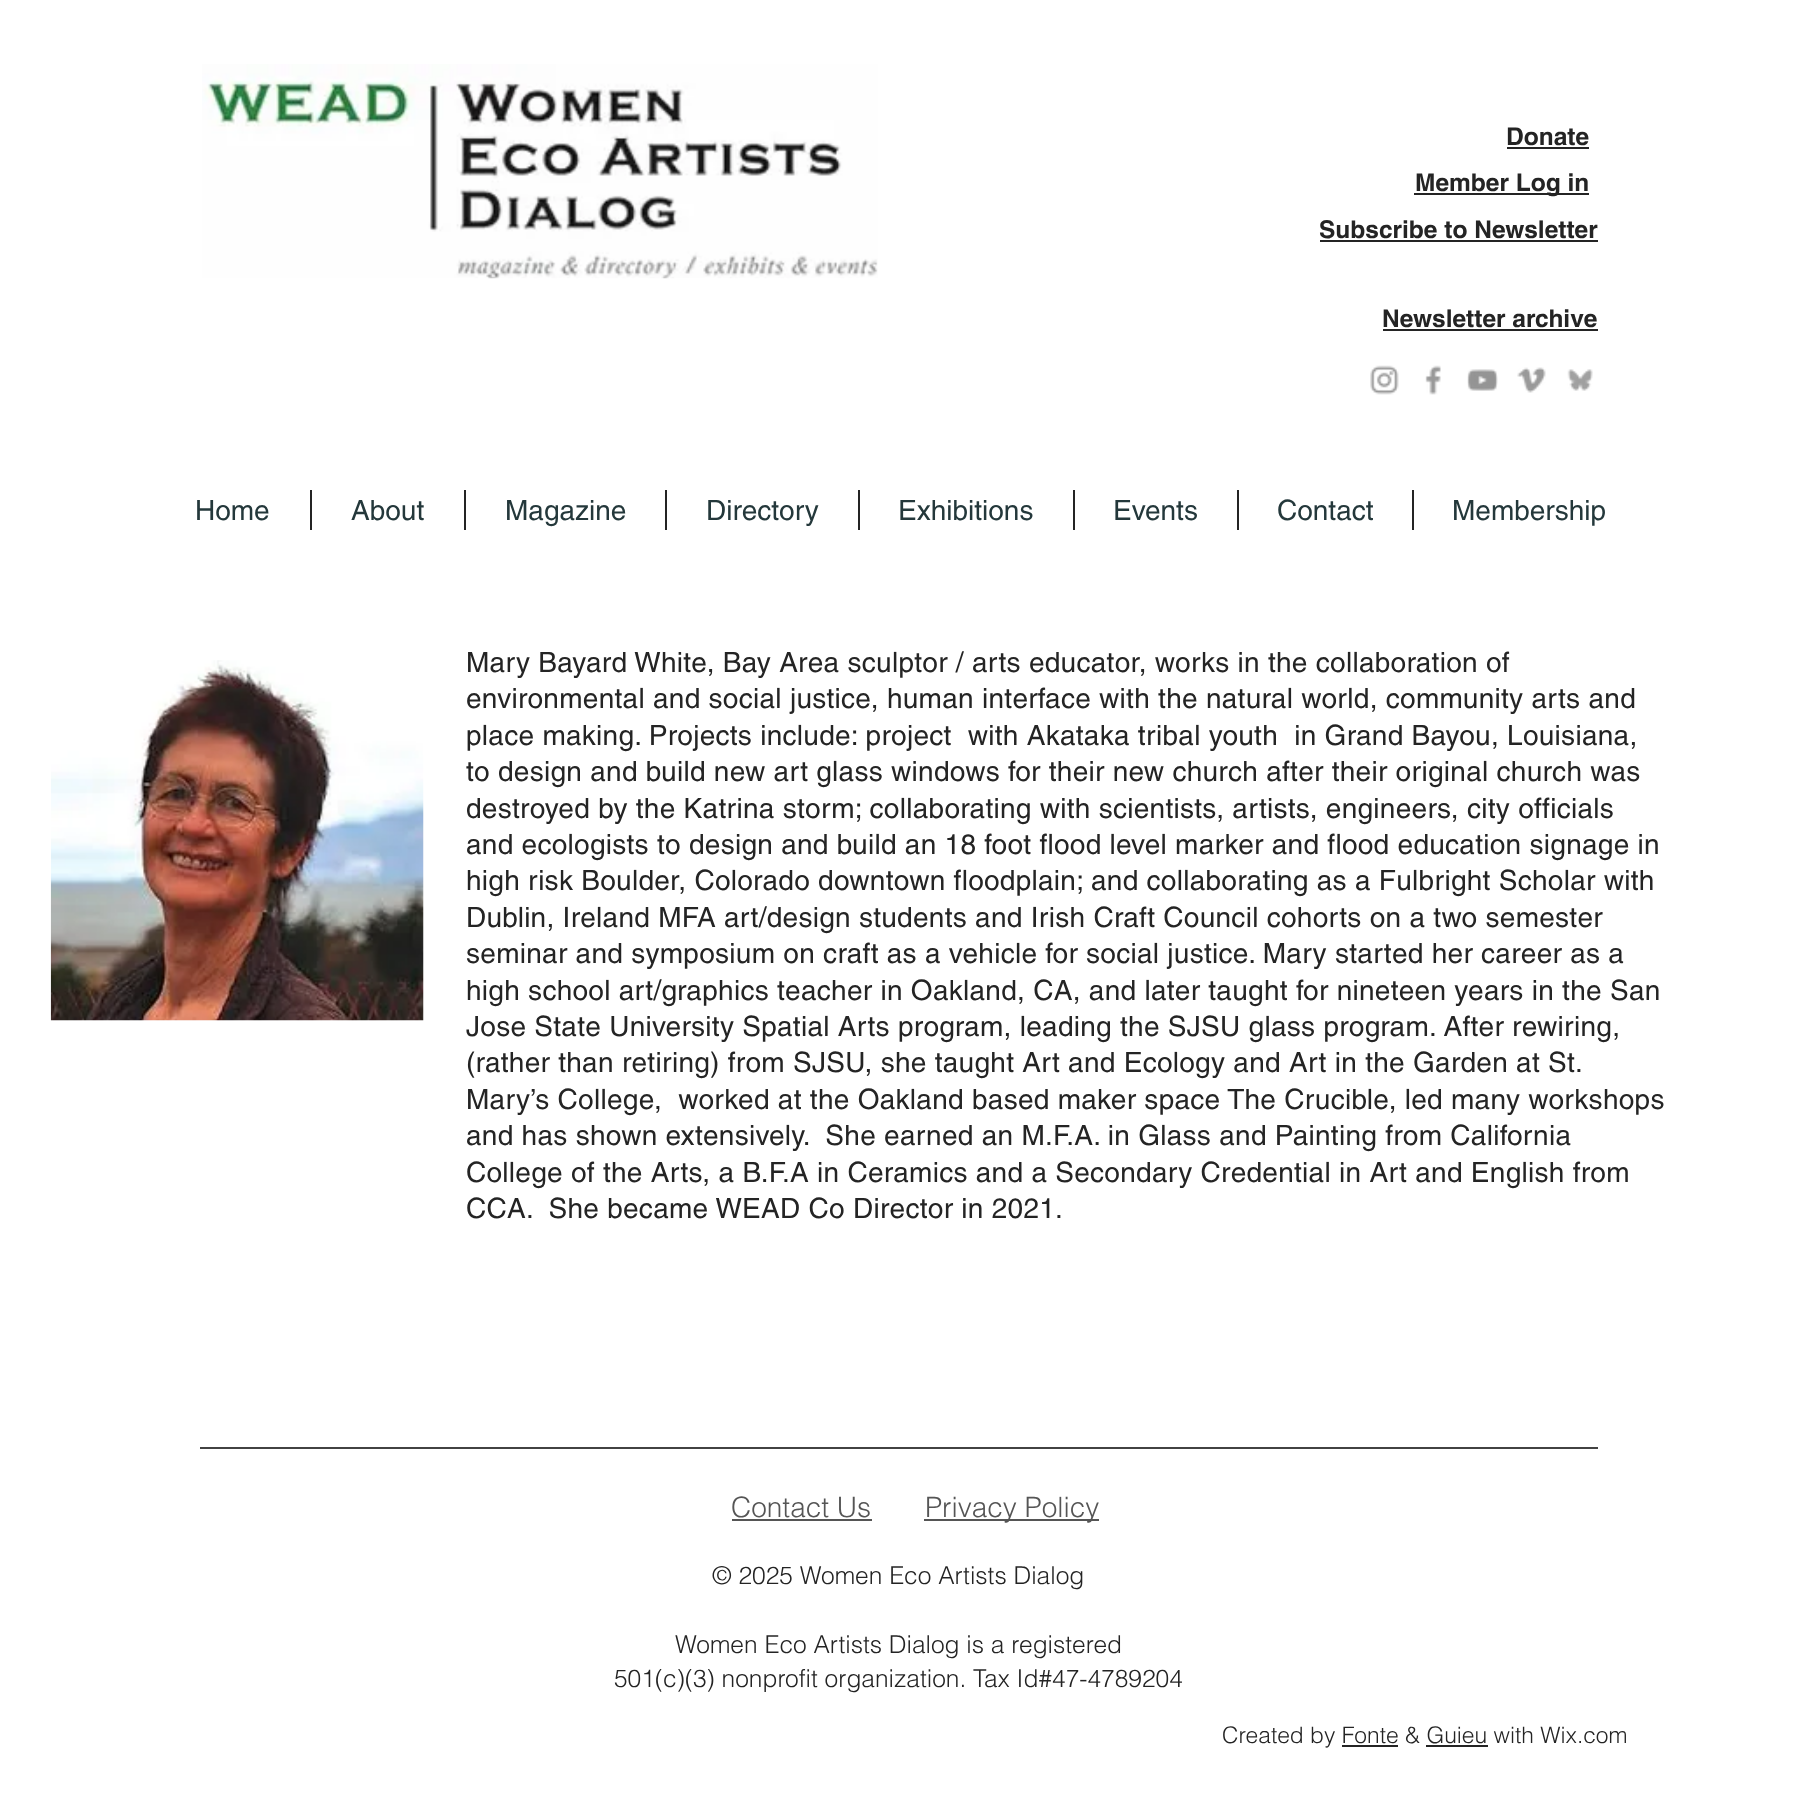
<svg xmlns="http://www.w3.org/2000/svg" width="1816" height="1814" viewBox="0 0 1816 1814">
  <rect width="100%" height="100%" fill="rgb(255,255,255)"/>
  <image x="202" y="64" width="676" height="215" href="pic1.png"/>
  <text x="1506" y="145" font-family="helvetica" font-size="24.5" font-weight="bold" fill="rgb(36,36,36)">Donate</text>
  <rect x="1507" y="147" width="82" height="2" fill="rgb(36,36,36)"/>
  <rect x="1414" y="193" width="175" height="2" fill="rgb(36,36,36)"/>
  <g font-family="helvetica" font-size="24.5" font-weight="bold" fill="rgb(36,36,36)">
    <text x="1415" y="191">Member Log in</text>
    <text x="1319" y="238">Subscribe to Newsletter</text>
  </g>
  <rect x="1320" y="240" width="278" height="2" fill="rgb(36,36,36)"/>
  <text x="1382" y="327" font-family="helvetica" font-size="24.5" font-weight="bold" fill="rgb(36,36,36)">Newsletter archive</text>
  <rect x="1383" y="329" width="215" height="2" fill="rgb(36,36,36)"/>
  <image x="1370" y="365" width="29" height="30" href="pic2.png"/>
  <image x="1425" y="365" width="16" height="30" href="pic3.png"/>
  <image x="1467" y="369" width="31" height="22" href="pic4.png"/>
  <image x="1517" y="367" width="29" height="26" href="pic5.png"/>
  <image x="1567" y="369" width="26" height="22" href="pic6.png"/>
  <text x="195" y="520" font-family="helvetica" font-size="28" fill="rgb(36,56,59)">Home</text>
  <rect x="310" y="490" width="2" height="40" fill="rgb(36,36,36)"/>
  <text x="351" y="520" font-family="helvetica" font-size="28" fill="rgb(36,56,59)">About</text>
  <rect x="464" y="490" width="2" height="40" fill="rgb(36,36,36)"/>
  <text x="505" y="520" font-family="helvetica" font-size="28" fill="rgb(36,56,59)">Magazine</text>
  <rect x="665" y="490" width="2" height="40" fill="rgb(36,36,36)"/>
  <text x="706" y="520" font-family="helvetica" font-size="28" fill="rgb(36,56,59)">Directory</text>
  <rect x="858" y="490" width="2" height="40" fill="rgb(36,36,36)"/>
  <text x="898" y="520" font-family="helvetica" font-size="28" fill="rgb(36,56,59)">Exhibitions</text>
  <rect x="1073" y="490" width="2" height="40" fill="rgb(36,36,36)"/>
  <text x="1113" y="520" font-family="helvetica" font-size="28" fill="rgb(36,56,59)">Events</text>
  <rect x="1237" y="490" width="2" height="40" fill="rgb(36,36,36)"/>
  <text x="1277" y="520" font-family="helvetica" font-size="28" fill="rgb(36,56,59)">Contact</text>
  <rect x="1412" y="490" width="2" height="40" fill="rgb(36,36,36)"/>
  <text x="1452" y="520" font-family="helvetica" font-size="28" fill="rgb(36,56,59)">Membership</text>
  <image x="50" y="660" width="374" height="361" href="pic7.png"/>
  <g font-family="helvetica" font-size="28" letter-spacing="0.28" fill="rgb(36,36,36)">
    <text xml:space="preserve"><tspan x="466" y="672">Mary Bayard White, Bay Area sculptor / arts educator, works in the collaboration of</tspan><tspan x="466" y="708">environmental and social justice, human interface with the natural world, community arts and</tspan><tspan x="466" y="745">place making. Projects include: project  with Akataka tribal youth  in Grand Bayou, Louisiana,</tspan><tspan x="466" y="781">to design and build new art glass windows for their new church after their original church was</tspan><tspan x="466" y="818">destroyed by the Katrina storm; collaborating with scientists, artists, engineers, city officials</tspan><tspan x="466" y="854">and ecologists to design and build an 18 foot flood level marker and flood education signage in</tspan><tspan x="466" y="890">high risk Boulder, Colorado downtown floodplain; and collaborating as a Fulbright Scholar with</tspan><tspan x="466" y="927">Dublin, Ireland MFA art/design students and Irish Craft Council cohorts on a two semester</tspan><tspan x="466" y="963">seminar and symposium on craft as a vehicle for social justice. Mary started her career as a</tspan><tspan x="466" y="1000">high school art/graphics teacher in Oakland, CA, and later taught for nineteen years in the San</tspan><tspan x="466" y="1036">Jose State University Spatial Arts program, leading the SJSU glass program. After rewiring,</tspan><tspan x="466" y="1072">(rather than retiring) from SJSU, she taught Art and Ecology and Art in the Garden at St.</tspan><tspan x="466" y="1109">Mary’s College,  worked at the Oakland based maker space The Crucible, led many workshops</tspan><tspan x="466" y="1145">and has shown extensively.  She earned an M.F.A. in Glass and Painting from California</tspan><tspan x="466" y="1182">College of the Arts, a B.F.A in Ceramics and a Secondary Credential in Art and English from</tspan><tspan x="466" y="1218">CCA.  She became WEAD Co Director in 2021.</tspan></text>
  </g>
  <rect x="200" y="1447" width="1398" height="2" fill="rgb(66,66,66)"/>
  <text x="731" y="1517" font-family="helvetica" font-size="28" font-weight="300" fill="rgb(85,85,85)">Contact Us</text>
  <rect x="732" y="1519" width="140" height="2" fill="rgb(85,85,85)"/>
  <rect x="924" y="1519" width="175" height="2" fill="rgb(85,85,85)"/>
  <text x="925" y="1517" font-family="helvetica" font-size="28" font-weight="300" fill="rgb(85,85,85)">Privacy Policy</text>
  <g font-family="helvetica" font-size="24.5" font-weight="300" fill="rgb(36,36,36)">
    <text x="712" y="1584">© 2025 Women Eco Artists Dialog</text>
    <text x="675" y="1653">Women Eco Artists Dialog is a registered</text>
    <text x="614" y="1687">501(c)(3) nonprofit organization. Tax Id#47-4789204</text>
  </g>
  <text x="1222" y="1743" font-family="helvetica" font-size="22.75" font-weight="300" fill="rgb(36,36,36)">Created by Fonte &amp; Guieu with Wix.com</text>
  <rect x="1342" y="1745" width="56" height="2" fill="rgb(36,36,36)"/>
  <rect x="1426" y="1745" width="62" height="2" fill="rgb(36,36,36)"/>
</svg>
